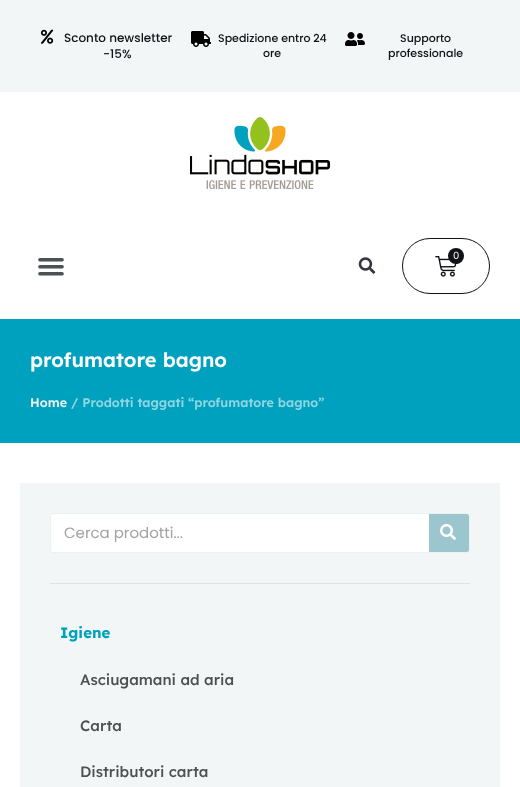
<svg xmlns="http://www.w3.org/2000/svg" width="520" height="787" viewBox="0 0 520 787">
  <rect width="100%" height="100%" fill="rgb(255,255,255)"/>
  <rect x="0" y="0" width="520" height="92" fill="rgb(243,246,246)"/>
  <image x="40" y="29" width="14" height="15" href="pic1.png"/>
  <g font-family="Poppins" font-size="12" font-weight="500" fill="rgb(16,18,24)">
    <text x="64" y="42">Sconto newsletter</text>
    <text x="103" y="58">-15%</text>
  </g>
  <image x="191" y="31" width="20" height="16" href="pic2.png"/>
  <g font-family="Poppins" font-size="11" font-weight="500" fill="rgb(16,18,24)">
    <text x="218" y="42">Spedizione entro 24</text>
    <text x="263" y="57">ore</text>
  </g>
  <image x="345" y="32" width="20" height="14" href="pic3.png"/>
  <g font-family="Poppins" font-size="11" font-weight="500" fill="rgb(16,18,24)">
    <text x="400" y="42">Supporto</text>
    <text x="388" y="57">professionale</text>
  </g>
  <image x="190" y="117" width="140" height="72" href="pic4.png"/>
  <rect x="402.5" y="238.5" width="87" height="55" rx="27.5" fill="none" stroke="rgb(16,18,24)"/>
  <image x="435" y="256" width="22" height="21" href="pic5.png"/>
  <circle cx="456" cy="256" r="8" fill="rgb(16,18,24)"/>
  <text x="453" y="259" font-family="Poppins" font-size="10" fill="rgb(255,255,255)">0</text>
  <image x="38" y="258" width="26" height="18" href="pic6.png"/>
  <image x="358" y="257" width="18" height="17" href="pic7.png"/>
  <rect x="0" y="319" width="520" height="124" fill="rgb(0,161,190)"/>
  <text x="30" y="367" font-family="Lexend" font-size="20" font-weight="600" fill="rgb(255,255,255)">profumatore bagno</text>
  <text x="30" y="407" font-family="Lexend" font-size="12.6" font-weight="600" fill="rgb(233,241,241)">Home</text>
  <text x="71" y="407" font-family="Lexend" font-size="12.6" font-weight="600" fill="rgb(143,214,226)">/ Prodotti taggati “profumatore bagno”</text>
  <rect x="20" y="483" width="480" height="304" fill="rgb(243,246,246)"/>
  <rect x="50.5" y="513.5" width="419" height="39" rx="2.5" fill="rgb(255,255,255)" stroke="rgb(233,241,241)"/>
  <text x="64" y="538" font-family="Poppins" font-size="15" fill="rgb(163,163,163)">Cerca prodotti...</text>
  <path d="M429 514H467C468 514 469 515 469 516V550C469 551 468 552 467 552H429Z" fill="rgb(155,198,206)"/>
  <image x="440" y="524" width="16" height="16" href="pic8.png"/>
  <rect x="50" y="583" width="420" height="1" fill="rgb(223,226,226)"/>
  <text x="60" y="638" font-family="Lexend" font-size="15" font-weight="bold" fill="rgb(0,161,190)">Igiene</text>
  <g font-family="Lexend" font-size="15" font-weight="500" fill="rgb(76,82,83)">
    <text x="80" y="685">Asciugamani ad aria</text>
    <text x="80" y="731">Carta</text>
    <text x="80" y="777">Distributori carta</text>
  </g>
</svg>
